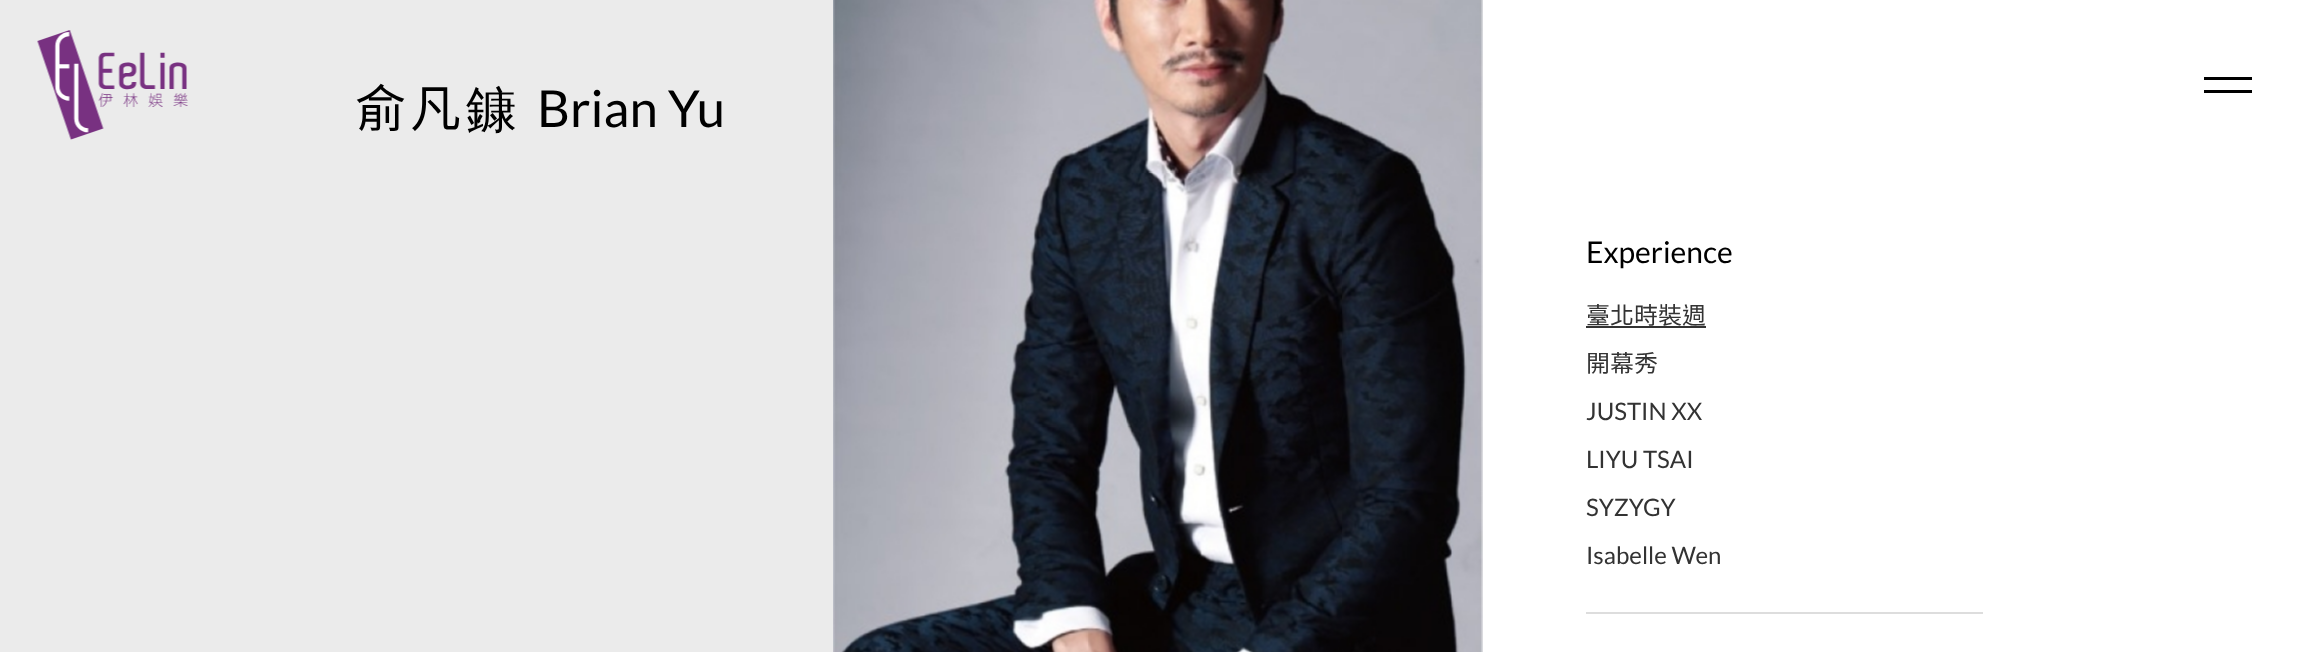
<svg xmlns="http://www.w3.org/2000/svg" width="2314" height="652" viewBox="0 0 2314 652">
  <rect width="100%" height="100%" fill="rgb(255,255,255)"/>
  <rect x="0" y="0" width="833" height="652" fill="rgb(235,235,235)"/>
  <image x="37" y="30" width="151" height="110" href="pic1.png"/>
  <rect x="2204" y="77" width="48" height="3" fill="rgb(0,0,0)"/>
  <rect x="2204" y="90" width="48" height="3" fill="rgb(0,0,0)"/>
  <text x="355" y="127" font-family="Noto Sans TC" font-size="51" letter-spacing="4" fill="rgb(0,0,0)">俞凡</text>
  <text x="466" y="127" font-family="WenQuanYi Zen Hei" font-size="51" font-weight="500" letter-spacing="4" fill="rgb(0,0,0)">鏮</text>
  <text x="537" y="127" font-family="Lato" font-size="51" fill="rgb(0,0,0)">Brian Yu</text>
  <image x="833" y="0" width="650" height="652" href="pic2.png"/>
  <text x="1586" y="263" font-family="Lato" font-size="30" fill="rgb(0,0,0)">Experience</text>
  <rect x="1586" y="612" width="397" height="2" fill="rgb(221,221,221)"/>
  <text x="1586" y="324" font-family="Noto Sans TC" font-size="24" fill="rgb(51,51,51)">臺北時裝週</text>
  <rect x="1586" y="326" width="120" height="2" fill="rgb(51,51,51)"/>
  <text x="1586" y="372" font-family="Noto Sans TC" font-size="24" fill="rgb(51,51,51)">開幕秀</text>
  <g font-family="Lato" font-size="24" fill="rgb(51,51,51)">
    <text x="1586" y="420">JUSTIN XX</text>
    <text x="1586" y="468">LIYU TSAI</text>
    <text x="1586" y="516">SYZYGY</text>
    <text x="1586" y="564">Isabelle Wen</text>
  </g>
</svg>
